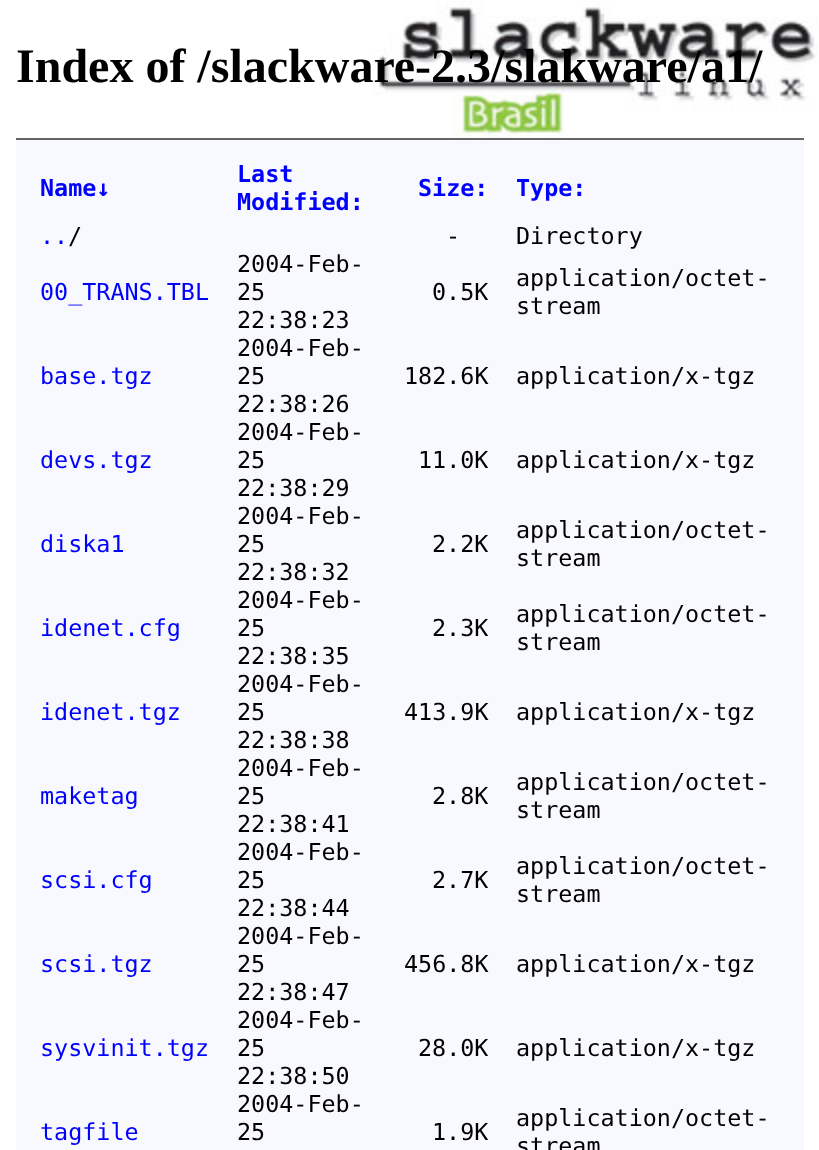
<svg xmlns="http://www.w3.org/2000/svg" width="819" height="1150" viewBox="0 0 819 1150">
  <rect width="100%" height="100%" fill="rgb(255,255,255)"/>
  <image x="372" y="1" width="446" height="141" href="pic1.png"/>
  <text x="16" y="82" font-family="Liberation Serif" font-size="48" font-weight="bold" fill="rgb(0,0,0)">Index of /slackware-2.3/slakware/a1/</text>
  <rect x="16" y="140" width="788" height="1010" fill="rgb(248,248,255)"/>
  <rect x="16" y="138" width="788" height="2" fill="rgb(100,100,100)"/>
  <g font-family="DejaVu Sans Mono" font-size="23.4" font-weight="bold" fill="rgb(0,0,255)">
    <text x="40" y="196">Name↓</text>
    <text>
      <tspan x="237" y="182">Last</tspan>
      <tspan x="237" y="210">Modified:</tspan>
    </text>
    <text x="418" y="196">Size:</text>
    <text x="516" y="196">Type:</text>
  </g>
  <text x="40" y="244" font-family="DejaVu Sans Mono" font-size="23.4" fill="rgb(0,0,255)">..</text>
  <g font-family="DejaVu Sans Mono" font-size="23.4" fill="rgb(0,0,0)">
    <text x="68" y="244">/</text>
    <text x="446" y="244">-</text>
    <text x="516" y="244">Directory</text>
  </g>
  <text x="40" y="300" font-family="DejaVu Sans Mono" font-size="23.4" fill="rgb(0,0,255)">00_TRANS.TBL</text>
  <g font-family="DejaVu Sans Mono" font-size="23.4" fill="rgb(0,0,0)">
    <text>
      <tspan x="237" y="272">2004-Feb-</tspan>
      <tspan x="237" y="300">25</tspan>
      <tspan x="237" y="328">22:38:23</tspan>
    </text>
    <text x="432" y="300">0.5K</text>
    <text>
      <tspan x="516" y="286">application/octet-</tspan>
      <tspan x="516" y="314">stream</tspan>
    </text>
  </g>
  <text x="40" y="384" font-family="DejaVu Sans Mono" font-size="23.4" fill="rgb(0,0,255)">base.tgz</text>
  <g font-family="DejaVu Sans Mono" font-size="23.4" fill="rgb(0,0,0)">
    <text>
      <tspan x="237" y="356">2004-Feb-</tspan>
      <tspan x="237" y="384">25</tspan>
      <tspan x="237" y="412">22:38:26</tspan>
    </text>
    <text x="404" y="384">182.6K</text>
    <text x="516" y="384">application/x-tgz</text>
  </g>
  <text x="40" y="468" font-family="DejaVu Sans Mono" font-size="23.4" fill="rgb(0,0,255)">devs.tgz</text>
  <g font-family="DejaVu Sans Mono" font-size="23.4" fill="rgb(0,0,0)">
    <text>
      <tspan x="237" y="440">2004-Feb-</tspan>
      <tspan x="237" y="468">25</tspan>
      <tspan x="237" y="496">22:38:29</tspan>
    </text>
    <text x="418" y="468">11.0K</text>
    <text x="516" y="468">application/x-tgz</text>
  </g>
  <text x="40" y="552" font-family="DejaVu Sans Mono" font-size="23.4" fill="rgb(0,0,255)">diska1</text>
  <g font-family="DejaVu Sans Mono" font-size="23.4" fill="rgb(0,0,0)">
    <text>
      <tspan x="237" y="524">2004-Feb-</tspan>
      <tspan x="237" y="552">25</tspan>
      <tspan x="237" y="580">22:38:32</tspan>
    </text>
    <text x="432" y="552">2.2K</text>
    <text>
      <tspan x="516" y="538">application/octet-</tspan>
      <tspan x="516" y="566">stream</tspan>
    </text>
  </g>
  <text x="40" y="636" font-family="DejaVu Sans Mono" font-size="23.4" fill="rgb(0,0,255)">idenet.cfg</text>
  <g font-family="DejaVu Sans Mono" font-size="23.4" fill="rgb(0,0,0)">
    <text>
      <tspan x="237" y="608">2004-Feb-</tspan>
      <tspan x="237" y="636">25</tspan>
      <tspan x="237" y="664">22:38:35</tspan>
    </text>
    <text x="432" y="636">2.3K</text>
    <text>
      <tspan x="516" y="622">application/octet-</tspan>
      <tspan x="516" y="650">stream</tspan>
    </text>
  </g>
  <text x="40" y="720" font-family="DejaVu Sans Mono" font-size="23.4" fill="rgb(0,0,255)">idenet.tgz</text>
  <g font-family="DejaVu Sans Mono" font-size="23.4" fill="rgb(0,0,0)">
    <text>
      <tspan x="237" y="692">2004-Feb-</tspan>
      <tspan x="237" y="720">25</tspan>
      <tspan x="237" y="748">22:38:38</tspan>
    </text>
    <text x="404" y="720">413.9K</text>
    <text x="516" y="720">application/x-tgz</text>
  </g>
  <text x="40" y="804" font-family="DejaVu Sans Mono" font-size="23.4" fill="rgb(0,0,255)">maketag</text>
  <g font-family="DejaVu Sans Mono" font-size="23.4" fill="rgb(0,0,0)">
    <text>
      <tspan x="237" y="776">2004-Feb-</tspan>
      <tspan x="237" y="804">25</tspan>
      <tspan x="237" y="832">22:38:41</tspan>
    </text>
    <text x="432" y="804">2.8K</text>
    <text>
      <tspan x="516" y="790">application/octet-</tspan>
      <tspan x="516" y="818">stream</tspan>
    </text>
  </g>
  <text x="40" y="888" font-family="DejaVu Sans Mono" font-size="23.4" fill="rgb(0,0,255)">scsi.cfg</text>
  <g font-family="DejaVu Sans Mono" font-size="23.4" fill="rgb(0,0,0)">
    <text>
      <tspan x="237" y="860">2004-Feb-</tspan>
      <tspan x="237" y="888">25</tspan>
      <tspan x="237" y="916">22:38:44</tspan>
    </text>
    <text x="432" y="888">2.7K</text>
    <text>
      <tspan x="516" y="874">application/octet-</tspan>
      <tspan x="516" y="902">stream</tspan>
    </text>
  </g>
  <text x="40" y="972" font-family="DejaVu Sans Mono" font-size="23.4" fill="rgb(0,0,255)">scsi.tgz</text>
  <g font-family="DejaVu Sans Mono" font-size="23.4" fill="rgb(0,0,0)">
    <text>
      <tspan x="237" y="944">2004-Feb-</tspan>
      <tspan x="237" y="972">25</tspan>
      <tspan x="237" y="1000">22:38:47</tspan>
    </text>
    <text x="404" y="972">456.8K</text>
    <text x="516" y="972">application/x-tgz</text>
  </g>
  <text x="40" y="1056" font-family="DejaVu Sans Mono" font-size="23.4" fill="rgb(0,0,255)">sysvinit.tgz</text>
  <g font-family="DejaVu Sans Mono" font-size="23.4" fill="rgb(0,0,0)">
    <text>
      <tspan x="237" y="1028">2004-Feb-</tspan>
      <tspan x="237" y="1056">25</tspan>
      <tspan x="237" y="1084">22:38:50</tspan>
    </text>
    <text x="418" y="1056">28.0K</text>
    <text x="516" y="1056">application/x-tgz</text>
  </g>
  <text x="40" y="1140" font-family="DejaVu Sans Mono" font-size="23.4" fill="rgb(0,0,255)">tagfile</text>
  <g font-family="DejaVu Sans Mono" font-size="23.4" fill="rgb(0,0,0)">
    <text>
      <tspan x="237" y="1112">2004-Feb-</tspan>
      <tspan x="237" y="1140">25</tspan>
    </text>
    <text x="432" y="1140">1.9K</text>
    <text>
      <tspan x="516" y="1126">application/octet-</tspan>
      <tspan x="516" y="1154">stream</tspan>
    </text>
  </g>
</svg>
